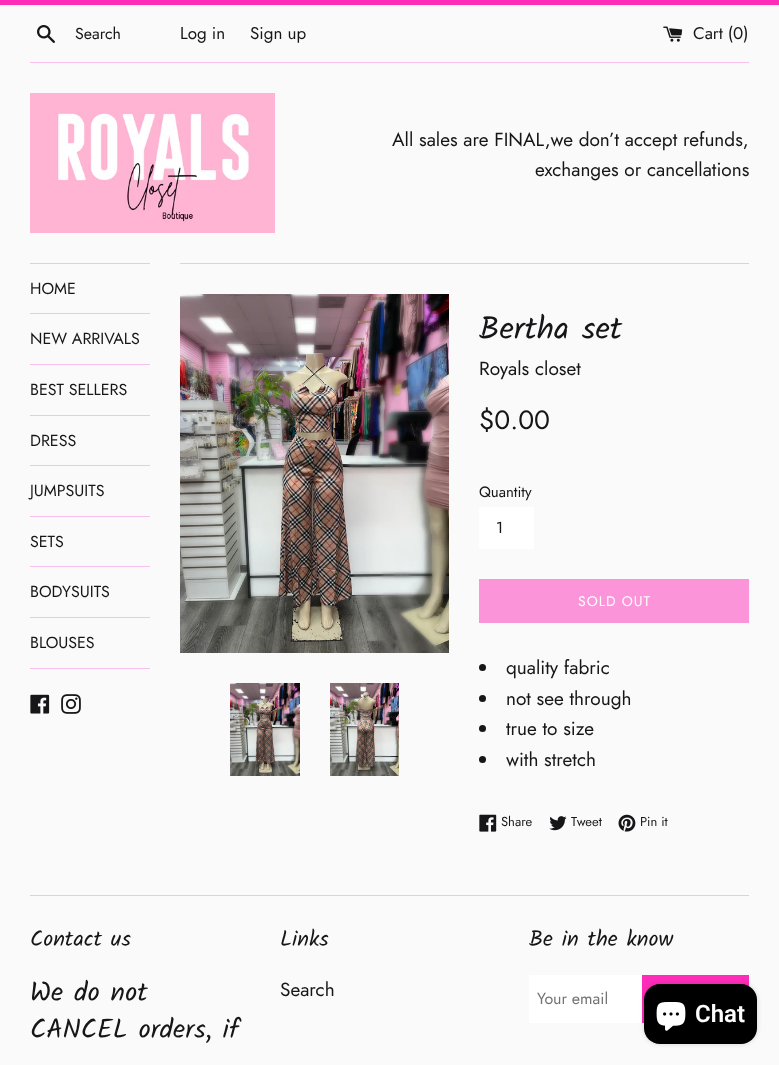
<svg xmlns="http://www.w3.org/2000/svg" width="779" height="1065" viewBox="0 0 779 1065">
  <rect width="100%" height="100%" fill="rgb(250,250,250)"/>
  <rect x="0" y="0" width="779" height="5" fill="rgb(254,45,185)"/>
  <image x="37" y="25" width="18" height="18" href="pic1.png"/>
  <text x="75" y="39" font-family="Jost" font-size="16" fill="rgb(22,22,24)">Search</text>
  <g font-family="Jost" font-size="17" fill="rgb(22,22,24)">
    <text x="180" y="39">Log in</text>
    <text x="250" y="39">Sign up</text>
  </g>
  <image x="663" y="26" width="20" height="16" href="pic2.png"/>
  <text x="693" y="39" font-family="Jost" font-size="17" fill="rgb(22,22,24)">Cart (0)</text>
  <rect x="30" y="62" width="719" height="1" fill="rgb(249,191,237)"/>
  <image x="30" y="93" width="245" height="140" href="pic3.png"/>
  <g font-family="Jost" font-size="19" fill="rgb(22,22,24)">
    <text x="392" y="146">All sales are FINAL,we don’t accept refunds,</text>
    <text x="535" y="176">exchanges or cancellations</text>
  </g>
  <rect x="30" y="263" width="120" height="1" fill="rgb(249,191,237)"/>
  <rect x="30" y="313" width="120" height="1" fill="rgb(249,191,237)"/>
  <text x="30" y="294" font-family="Jost" font-size="16" fill="rgb(22,22,24)">HOME</text>
  <rect x="30" y="364" width="120" height="1" fill="rgb(249,191,237)"/>
  <text x="30" y="344" font-family="Jost" font-size="16" fill="rgb(22,22,24)">NEW ARRIVALS</text>
  <rect x="30" y="415" width="120" height="1" fill="rgb(249,191,237)"/>
  <text x="30" y="395" font-family="Jost" font-size="16" fill="rgb(22,22,24)">BEST SELLERS</text>
  <rect x="30" y="465" width="120" height="1" fill="rgb(249,191,237)"/>
  <text x="30" y="446" font-family="Jost" font-size="16" fill="rgb(22,22,24)">DRESS</text>
  <rect x="30" y="516" width="120" height="1" fill="rgb(249,191,237)"/>
  <text x="30" y="496" font-family="Jost" font-size="16" fill="rgb(22,22,24)">JUMPSUITS</text>
  <rect x="30" y="566" width="120" height="1" fill="rgb(249,191,237)"/>
  <text x="30" y="547" font-family="Jost" font-size="16" fill="rgb(22,22,24)">SETS</text>
  <rect x="30" y="617" width="120" height="1" fill="rgb(249,191,237)"/>
  <text x="30" y="597" font-family="Jost" font-size="16" fill="rgb(22,22,24)">BODYSUITS</text>
  <rect x="30" y="668" width="120" height="1" fill="rgb(249,191,237)"/>
  <text x="30" y="648" font-family="Jost" font-size="16" fill="rgb(22,22,24)">BLOUSES</text>
  <image x="30" y="694" width="20" height="20" href="pic4.png"/>
  <image x="61" y="694" width="20" height="20" href="pic5.png"/>
  <rect x="180" y="263" width="569" height="1" fill="rgb(249,191,237)"/>
  <image x="180" y="294" width="269" height="359" href="pic6.png"/>
  <image x="230" y="683" width="70" height="93" href="pic7.png"/>
  <image x="330" y="683" width="69" height="93" href="pic8.png"/>
  <text x="479" y="339" font-family="Kalam" font-size="32" fill="rgb(22,22,24)">Bertha set</text>
  <text x="479" y="375" font-family="Jost" font-size="19" fill="rgb(22,22,24)">Royals closet</text>
  <text x="479" y="429" font-family="Jost" font-size="26.5" fill="rgb(22,22,24)">$0.00</text>
  <text x="479" y="497" font-family="Jost" font-size="15" fill="rgb(22,22,24)">Quantity</text>
  <rect x="479" y="507" width="55" height="42" fill="rgb(255,255,255)"/>
  <text x="496" y="533" font-family="Jost" font-size="16" fill="rgb(22,22,24)">1</text>
  <rect x="479" y="579" width="270" height="44" fill="rgb(252,148,218)"/>
  <text x="578" y="606" font-family="Jost" font-size="14" letter-spacing="1" fill="rgb(253,253,253)">SOLD OUT</text>
  <circle cx="482.5" cy="667.5" r="3.5" fill="rgb(22,22,24)"/>
  <text x="506" y="674" font-family="Jost" font-size="19" fill="rgb(22,22,24)">quality fabric</text>
  <circle cx="482.5" cy="698.5" r="3.5" fill="rgb(22,22,24)"/>
  <text x="506" y="705" font-family="Jost" font-size="19" fill="rgb(22,22,24)">not see through</text>
  <circle cx="482.5" cy="728.5" r="3.5" fill="rgb(22,22,24)"/>
  <text x="506" y="735" font-family="Jost" font-size="19" fill="rgb(22,22,24)">true to size</text>
  <circle cx="482.5" cy="759.5" r="3.5" fill="rgb(22,22,24)"/>
  <text x="506" y="766" font-family="Jost" font-size="19" fill="rgb(22,22,24)">with stretch</text>
  <image x="479" y="814" width="18" height="18" href="pic9.png"/>
  <text x="501" y="826" font-family="Jost" font-size="13" fill="rgb(22,22,24)">Share</text>
  <image x="549" y="816" width="18" height="15" href="pic10.png"/>
  <text x="571" y="826" font-family="Jost" font-size="13" fill="rgb(22,22,24)">Tweet</text>
  <image x="618" y="814" width="18" height="18" href="pic11.png"/>
  <text x="640" y="826" font-family="Jost" font-size="13" fill="rgb(22,22,24)">Pin it</text>
  <rect x="30" y="895" width="719" height="1" fill="rgb(249,191,237)"/>
  <text x="30" y="946" font-family="Kalam" font-size="22" fill="rgb(22,22,24)">Contact us</text>
  <g font-family="Kalam" font-size="27" fill="rgb(22,22,24)">
    <text>
      <tspan x="30" y="1001">We do not</tspan>
      <tspan x="30" y="1038">CANCEL orders, if</tspan>
    </text>
  </g>
  <text x="280" y="946" font-family="Kalam" font-size="22" fill="rgb(22,22,24)">Links</text>
  <text x="280" y="996" font-family="Jost" font-size="19" fill="rgb(22,22,24)">Search</text>
  <text x="529" y="946" font-family="Kalam" font-size="22" fill="rgb(22,22,24)">Be in the know</text>
  <rect x="529" y="975" width="113" height="48" fill="rgb(255,255,255)"/>
  <text x="537" y="1004" font-family="Jost" font-size="16" fill="rgb(115,115,116)">Your email</text>
  <rect x="642" y="975" width="107" height="48" fill="rgb(254,45,185)"/>
  <rect x="644" y="984" width="113" height="60" rx="16" fill="rgba(0,0,0,0.15)" filter="blur(2.5px)"/>
  <rect x="644" y="984" width="113" height="60" rx="16" fill="rgb(0,0,0)"/>
  <image x="656" y="1002" width="30" height="29" href="pic12.png"/>
  <text x="695" y="1022" font-family="Roboto" font-size="24" font-weight="600" fill="rgb(253,253,253)">Chat</text>
</svg>
